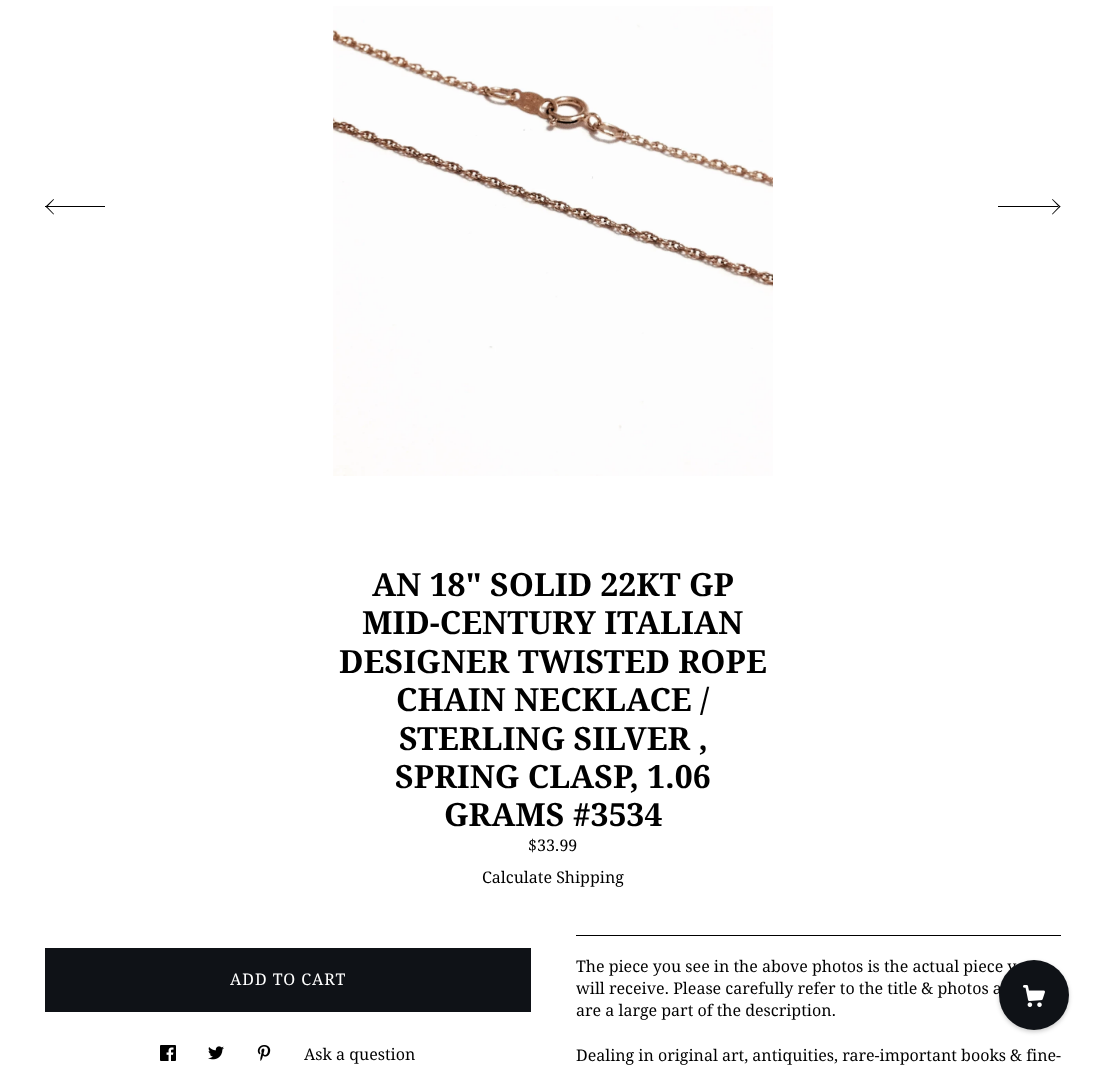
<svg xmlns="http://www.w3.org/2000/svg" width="1106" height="1075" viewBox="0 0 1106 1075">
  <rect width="100%" height="100%" fill="rgb(255,255,255)"/>
  <image x="333" y="6" width="440" height="470" href="pic1.png"/>
  <path d="M54 214L53.5 214.5L45.5 206.5L46.5 206Z" fill="rgb(0,0,0)"/>
  <path d="M54 199.5L46.5 207.5L45.5 206.5L53.5 199Z" fill="rgb(0,0,0)"/>
  <rect x="45" y="206" width="60" height="1" fill="rgb(0,0,0)"/>
  <path d="M1052 199.5L1052.5 199L1060.5 206.5L1059.5 207.5Z" fill="rgb(0,0,0)"/>
  <path d="M1052 214L1059.5 206L1060.5 206.5L1052.5 214.5Z" fill="rgb(0,0,0)"/>
  <rect x="998" y="206" width="60" height="1" fill="rgb(0,0,0)"/>
  <g font-family="Droid Serif" font-size="32" font-weight="bold" fill="rgb(0,0,0)">
    <text x="372" y="596">AN 18" SOLID 22KT GP</text>
    <text x="362" y="634">MID-CENTURY ITALIAN</text>
    <text x="339" y="673">DESIGNER TWISTED ROPE</text>
    <text x="396" y="711">CHAIN NECKLACE /</text>
    <text x="399" y="750">STERLING SILVER ,</text>
    <text x="395" y="788">SPRING CLASP, 1.06</text>
    <text x="444" y="826">GRAMS #3534</text>
  </g>
  <g font-family="Droid Serif" font-size="16" fill="rgb(0,0,0)">
    <text x="528" y="851">$33.99</text>
    <text x="482" y="883">Calculate Shipping</text>
  </g>
  <rect x="45" y="948" width="486" height="64" fill="rgb(15,18,23)"/>
  <text x="230" y="985" font-family="Droid Serif" font-size="16" letter-spacing="1" fill="rgb(255,255,255)">ADD TO CART</text>
  <image x="160" y="1045" width="16" height="16" href="pic2.png"/>
  <image x="208" y="1046" width="16" height="14" href="pic3.png"/>
  <image x="257" y="1045" width="14" height="16" href="pic4.png"/>
  <text x="304" y="1060" font-family="Droid Serif" font-size="16" fill="rgb(0,0,0)">Ask a question</text>
  <rect x="576" y="935" width="485" height="1" fill="rgb(0,0,0)"/>
  <g font-family="Droid Serif" font-size="16" fill="rgb(0,0,0)">
    <text>
      <tspan x="576" y="972">The piece you see in the above photos is the actual piece y</tspan>
      <tspan x="576" y="994">will receive. Please carefully refer to the title &amp; photos a</tspan>
      <tspan x="576" y="1016">are a large part of the description.</tspan>
    </text>
    <text x="576" y="1061">Dealing in original art, antiquities, rare-important books &amp; fine-</text>
  </g>
  <rect x="999" y="962" width="70" height="70" rx="35" fill="rgba(0,0,0,0.2)" filter="blur(2px)"/>
  <circle cx="1034" cy="995" r="35" fill="rgb(15,18,23)"/>
  <image x="1023" y="985" width="22" height="22" href="pic5.png"/>
</svg>
